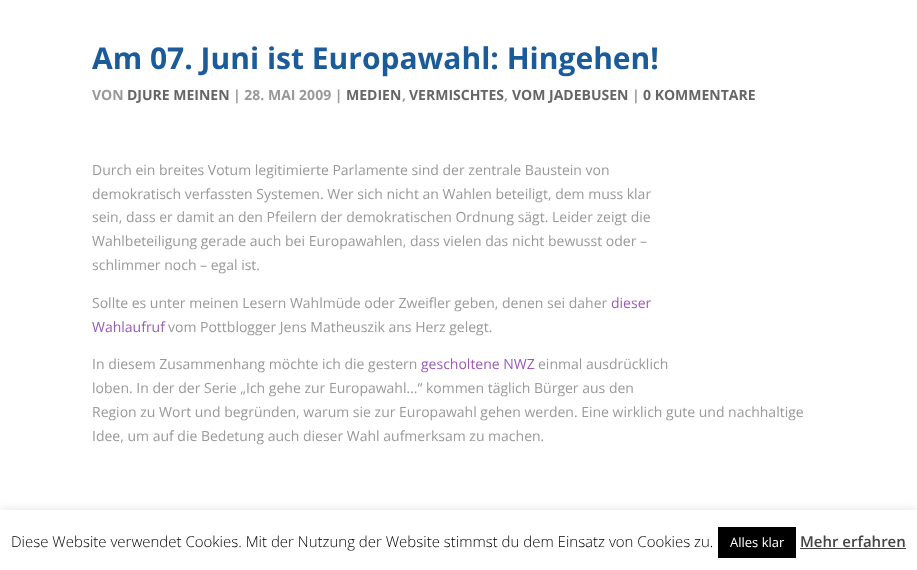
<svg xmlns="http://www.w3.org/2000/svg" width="917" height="570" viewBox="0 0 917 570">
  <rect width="100%" height="100%" fill="rgb(255,255,255)"/>
  <text x="92" y="69" font-family="Open Sans" font-size="30" font-weight="bold" fill="rgb(27,91,153)">Am 07. Juni ist Europawahl: Hingehen!</text>
  <text x="92" y="100" font-family="Open Sans" font-size="14" font-weight="bold" fill="rgb(153,153,153)">VON</text>
  <text x="127" y="100" font-family="Open Sans" font-size="14" font-weight="bold" fill="rgb(102,102,102)">DJURE MEINEN</text>
  <text x="233" y="100" font-family="Open Sans" font-size="14" font-weight="bold" fill="rgb(153,153,153)">| 28. MAI 2009 |</text>
  <text x="346" y="100" font-family="Open Sans" font-size="14" font-weight="bold" fill="rgb(102,102,102)">MEDIEN</text>
  <text x="402" y="100" font-family="Open Sans" font-size="14" font-weight="bold" fill="rgb(153,153,153)">,</text>
  <text x="409" y="100" font-family="Open Sans" font-size="14" font-weight="bold" fill="rgb(102,102,102)">VERMISCHTES</text>
  <text x="504" y="100" font-family="Open Sans" font-size="14" font-weight="bold" fill="rgb(153,153,153)">,</text>
  <text x="512" y="100" font-family="Open Sans" font-size="14" font-weight="bold" fill="rgb(102,102,102)">VOM JADEBUSEN</text>
  <text x="632" y="100" font-family="Open Sans" font-size="14" font-weight="bold" fill="rgb(153,153,153)">|</text>
  <text x="643" y="100" font-family="Open Sans" font-size="14" font-weight="bold" fill="rgb(102,102,102)">0 KOMMENTARE</text>
  <g font-family="Open Sans" font-size="14" fill="rgb(153,153,153)">
    <text>
      <tspan x="92" y="175">Durch ein breites Votum legitimierte Parlamente sind der zentrale Baustein von</tspan>
      <tspan x="92" y="199">demokratisch verfassten Systemen. Wer sich nicht an Wahlen beteiligt, dem muss klar</tspan>
      <tspan x="92" y="222">sein, dass er damit an den Pfeilern der demokratischen Ordnung sägt. Leider zeigt die</tspan>
      <tspan x="92" y="246">Wahlbeteiligung gerade auch bei Europawahlen, dass vielen das nicht bewusst oder –</tspan>
      <tspan x="92" y="270">schlimmer noch – egal ist.</tspan>
    </text>
    <text x="92" y="308">Sollte es unter meinen Lesern Wahlmüde oder Zweifler geben, denen sei daher</text>
  </g>
  <g font-family="Open Sans" font-size="14" fill="rgb(155,89,182)">
    <text x="611" y="308">dieser</text>
    <text x="92" y="332">Wahlaufruf</text>
  </g>
  <g font-family="Open Sans" font-size="14" fill="rgb(153,153,153)">
    <text x="168" y="332">vom Pottblogger Jens Matheuszik ans Herz gelegt.</text>
    <text x="92" y="369">In diesem Zusammenhang möchte ich die gestern</text>
  </g>
  <text x="421" y="369" font-family="Open Sans" font-size="14" fill="rgb(155,89,182)">gescholtene NWZ</text>
  <g font-family="Open Sans" font-size="14" fill="rgb(153,153,153)">
    <text x="538" y="369">einmal ausdrücklich</text>
    <text>
      <tspan x="92" y="393">loben. In der der Serie „Ich gehe zur Europawahl…“ kommen täglich Bürger aus den</tspan>
      <tspan x="92" y="417">Region zu Wort und begründen, warum sie zur Europawahl gehen werden. Eine wirklich gute und nachhaltige</tspan>
      <tspan x="92" y="441">Idee, um auf die Bedetung auch dieser Wahl aufmerksam zu machen.</tspan>
    </text>
  </g>
  <rect x="0" y="509" width="917" height="60" fill="rgba(172,171,171,0.3)" filter="blur(5px)"/>
  <rect x="0" y="510" width="917" height="60" fill="rgb(255,255,255)"/>
  <text x="11" y="547" font-family="Open Sans" font-size="15" font-weight="300" fill="rgb(0,0,0)">Diese Website verwendet Cookies. Mit der Nutzung der Website stimmst du dem Einsatz von Cookies zu.</text>
  <rect x="718" y="527" width="78" height="31" fill="rgb(0,0,0)"/>
  <text x="730" y="547" font-family="Open Sans" font-size="13" fill="rgb(255,255,255)">Alles klar</text>
  <text x="800" y="547" font-family="Open Sans" font-size="15" font-weight="600" fill="rgb(68,68,68)">Mehr erfahren</text>
  <rect x="800" y="548" width="106" height="1" fill="rgb(68,68,68)"/>
</svg>
